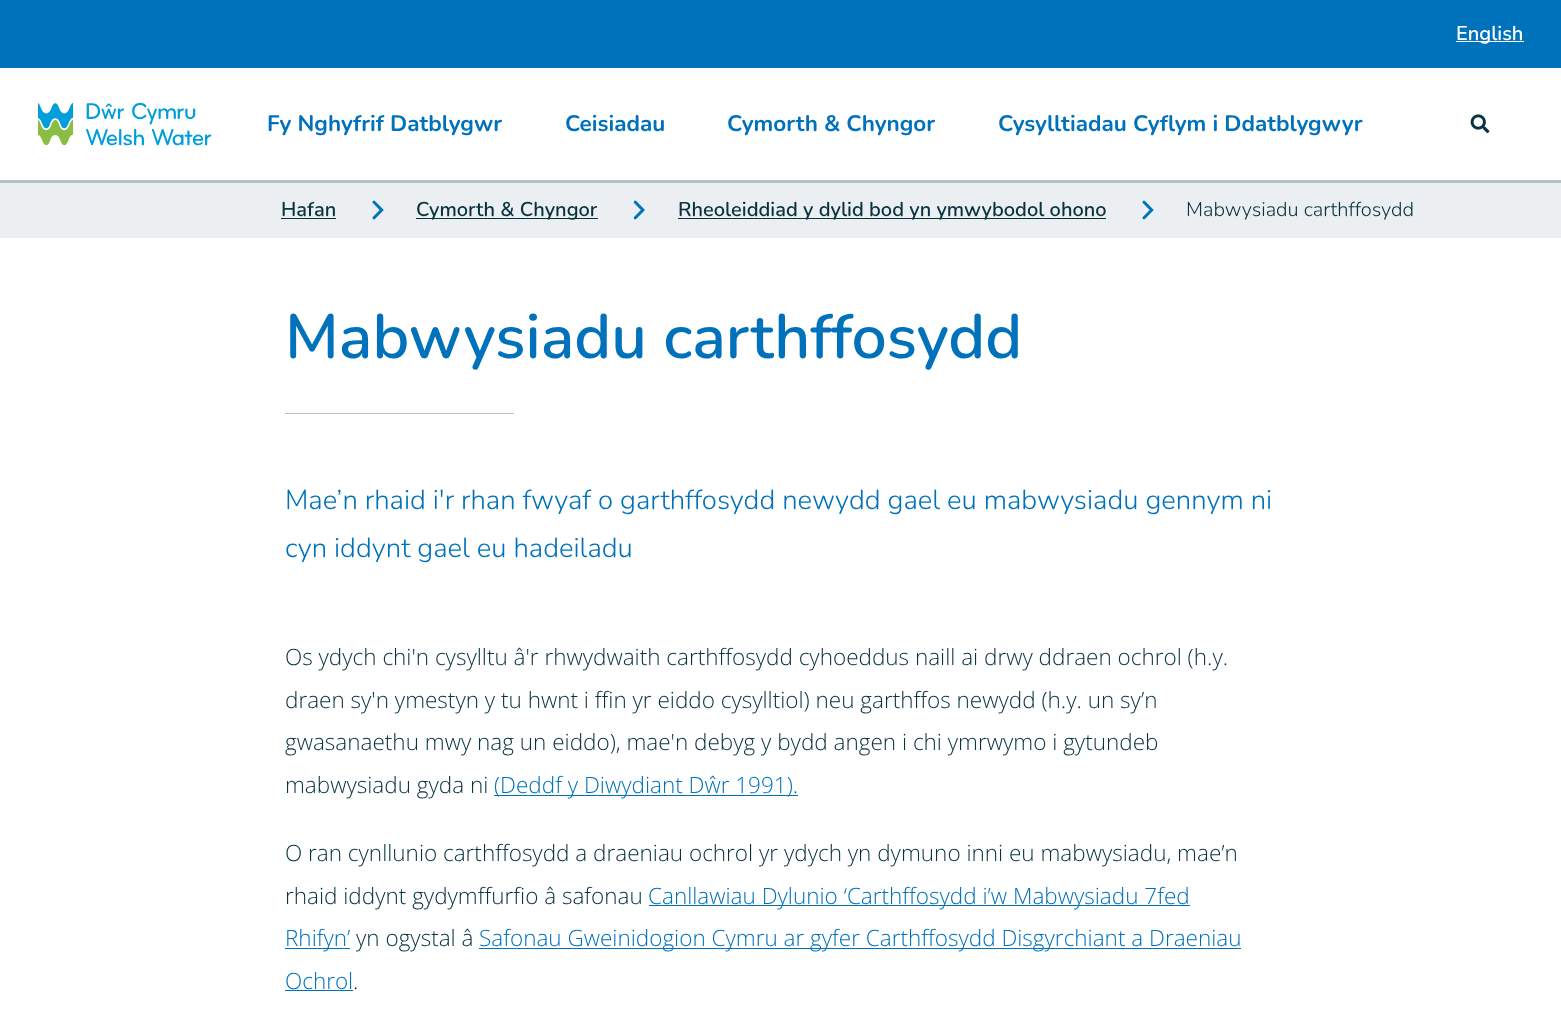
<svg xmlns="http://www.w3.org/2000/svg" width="1561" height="1019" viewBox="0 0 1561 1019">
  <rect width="100%" height="100%" fill="rgb(255,255,255)"/>
  <rect x="0" y="180" width="1561" height="3" fill="rgb(178,194,199)"/>
  <rect x="0" y="0" width="1561" height="68" fill="rgb(0,114,188)"/>
  <rect x="1456" y="41" width="68" height="1" fill="rgb(255,255,255)"/>
  <text x="1456" y="40" font-family="Nunito" font-size="20" font-weight="600" fill="rgb(255,255,255)">English</text>
  <image x="38" y="102" width="174" height="44" href="pic1.png"/>
  <g font-family="Nunito" font-size="22.5" font-weight="bold" fill="rgb(0,114,188)">
    <text x="267" y="131">Fy Nghyfrif Datblygwr</text>
    <text x="565" y="131">Ceisiadau</text>
    <text x="727" y="131">Cymorth &amp; Chyngor</text>
    <text x="998" y="131">Cysylltiadau Cyflym i Ddatblygwyr</text>
  </g>
  <image x="1470" y="114" width="20" height="20" href="pic2.png"/>
  <rect x="0" y="183" width="1561" height="55" fill="rgb(235,239,241)"/>
  <text x="281" y="216" font-family="Nunito" font-size="20" font-weight="600" fill="rgb(9,51,63)">Hafan</text>
  <rect x="281" y="218" width="55" height="1" fill="rgb(9,51,63)"/>
  <image x="372" y="200" width="12" height="20" href="pic3.png"/>
  <rect x="416" y="218" width="182" height="1" fill="rgb(9,51,63)"/>
  <text x="416" y="216" font-family="Nunito" font-size="20" font-weight="600" fill="rgb(9,51,63)">Cymorth &amp; Chyngor</text>
  <image x="633" y="200" width="12" height="20" href="pic4.png"/>
  <rect x="678" y="218" width="428" height="1" fill="rgb(9,51,63)"/>
  <text x="678" y="216" font-family="Nunito" font-size="20" font-weight="600" fill="rgb(9,51,63)">Rheoleiddiad y dylid bod yn ymwybodol ohono</text>
  <image x="1142" y="200" width="12" height="20" href="pic3.png"/>
  <text x="1186" y="216" font-family="Nunito" font-size="20" font-weight="300" fill="rgb(9,51,63)">Mabwysiadu carthffosydd</text>
  <text x="285" y="358" font-family="Nunito" font-size="62.5" font-weight="600" fill="rgb(0,114,188)">Mabwysiadu carthffosydd</text>
  <rect x="285" y="413" width="229" height="1" fill="rgb(178,194,199)"/>
  <g font-family="Nunito" font-size="27.5" font-weight="300" fill="rgb(0,114,188)">
    <text>
      <tspan x="285" y="509">Mae’n rhaid i'r rhan fwyaf o garthffosydd newydd gael eu mabwysiadu gennym ni</tspan>
      <tspan x="285" y="557">cyn iddynt gael eu hadeiladu</tspan>
    </text>
  </g>
  <g font-family="Open Sans" font-size="22.5" font-weight="300" fill="rgb(9,51,63)">
    <text>
      <tspan x="285" y="665">Os ydych chi'n cysylltu â'r rhwydwaith carthffosydd cyhoeddus naill ai drwy ddraen ochrol (h.y.</tspan>
      <tspan x="285" y="708">draen sy'n ymestyn y tu hwnt i ffin yr eiddo cysylltiol) neu garthffos newydd (h.y. un sy’n</tspan>
      <tspan x="285" y="750">gwasanaethu mwy nag un eiddo), mae'n debyg y bydd angen i chi ymrwymo i gytundeb</tspan>
      <tspan x="285" y="793">mabwysiadu gyda ni</tspan>
    </text>
  </g>
  <rect x="494" y="795" width="304" height="1" fill="rgb(0,114,188)"/>
  <text x="494" y="793" font-family="Open Sans" font-size="22.5" font-weight="300" fill="rgb(0,114,188)">(Deddf y Diwydiant Dŵr 1991).</text>
  <g font-family="Open Sans" font-size="22.5" font-weight="300" fill="rgb(9,51,63)">
    <text>
      <tspan x="285" y="861">O ran cynllunio carthffosydd a draeniau ochrol yr ydych yn dymuno inni eu mabwysiadu, mae’n</tspan>
      <tspan x="285" y="904">rhaid iddynt gydymffurfio â safonau</tspan>
    </text>
  </g>
  <rect x="649" y="905" width="541" height="1" fill="rgb(0,114,188)"/>
  <text x="648" y="904" font-family="Open Sans" font-size="22.5" font-weight="300" fill="rgb(0,114,188)">Canllawiau Dylunio ‘Carthffosydd i’w Mabwysiadu 7fed</text>
  <rect x="285" y="948" width="65" height="1" fill="rgb(0,114,188)"/>
  <text x="285" y="946" font-family="Open Sans" font-size="22.5" font-weight="300" fill="rgb(0,114,188)">Rhifyn’</text>
  <text x="356" y="946" font-family="Open Sans" font-size="22.5" font-weight="300" fill="rgb(9,51,63)">yn ogystal â</text>
  <rect x="479" y="948" width="762" height="1" fill="rgb(0,114,188)"/>
  <g font-family="Open Sans" font-size="22.5" font-weight="300" fill="rgb(0,114,188)">
    <text x="479" y="946">Safonau Gweinidogion Cymru ar gyfer Carthffosydd Disgyrchiant a Draeniau</text>
    <text x="285" y="989">Ochrol</text>
  </g>
  <rect x="285" y="990" width="68" height="1" fill="rgb(0,114,188)"/>
  <text x="353" y="989" font-family="Open Sans" font-size="22.5" font-weight="300" fill="rgb(9,51,63)">.</text>
</svg>
